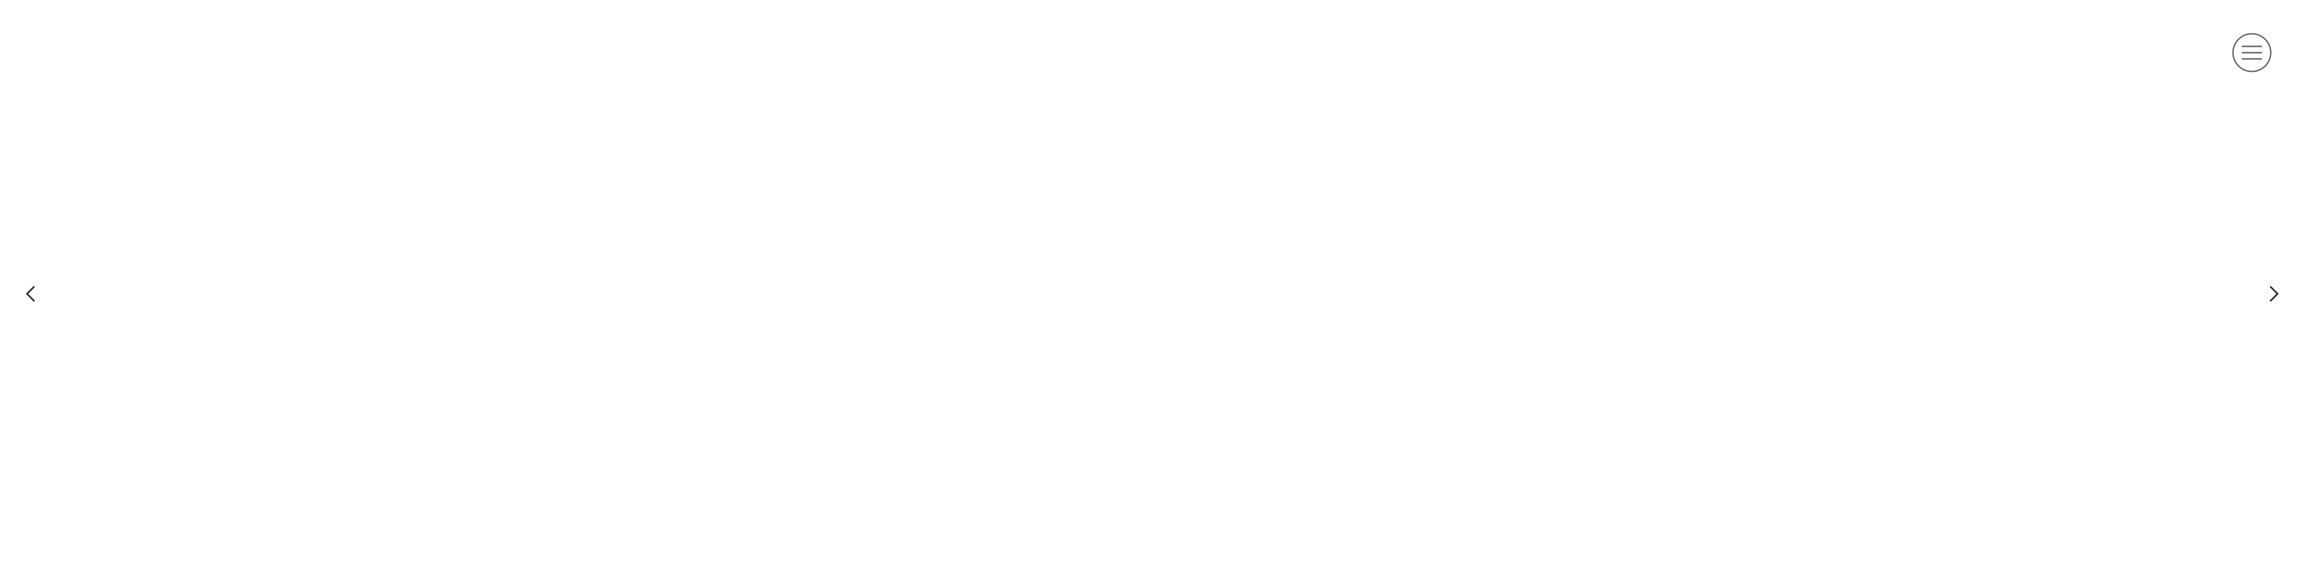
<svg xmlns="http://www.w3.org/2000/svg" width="2305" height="587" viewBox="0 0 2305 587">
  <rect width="100%" height="100%" fill="rgb(255,255,255)"/>
  <image x="2232" y="33" width="40" height="40" href="pic1.png"/>
  <image x="25" y="285" width="10" height="17" href="pic2.png"/>
  <image x="2269" y="285" width="10" height="17" href="pic3.png"/>
</svg>
